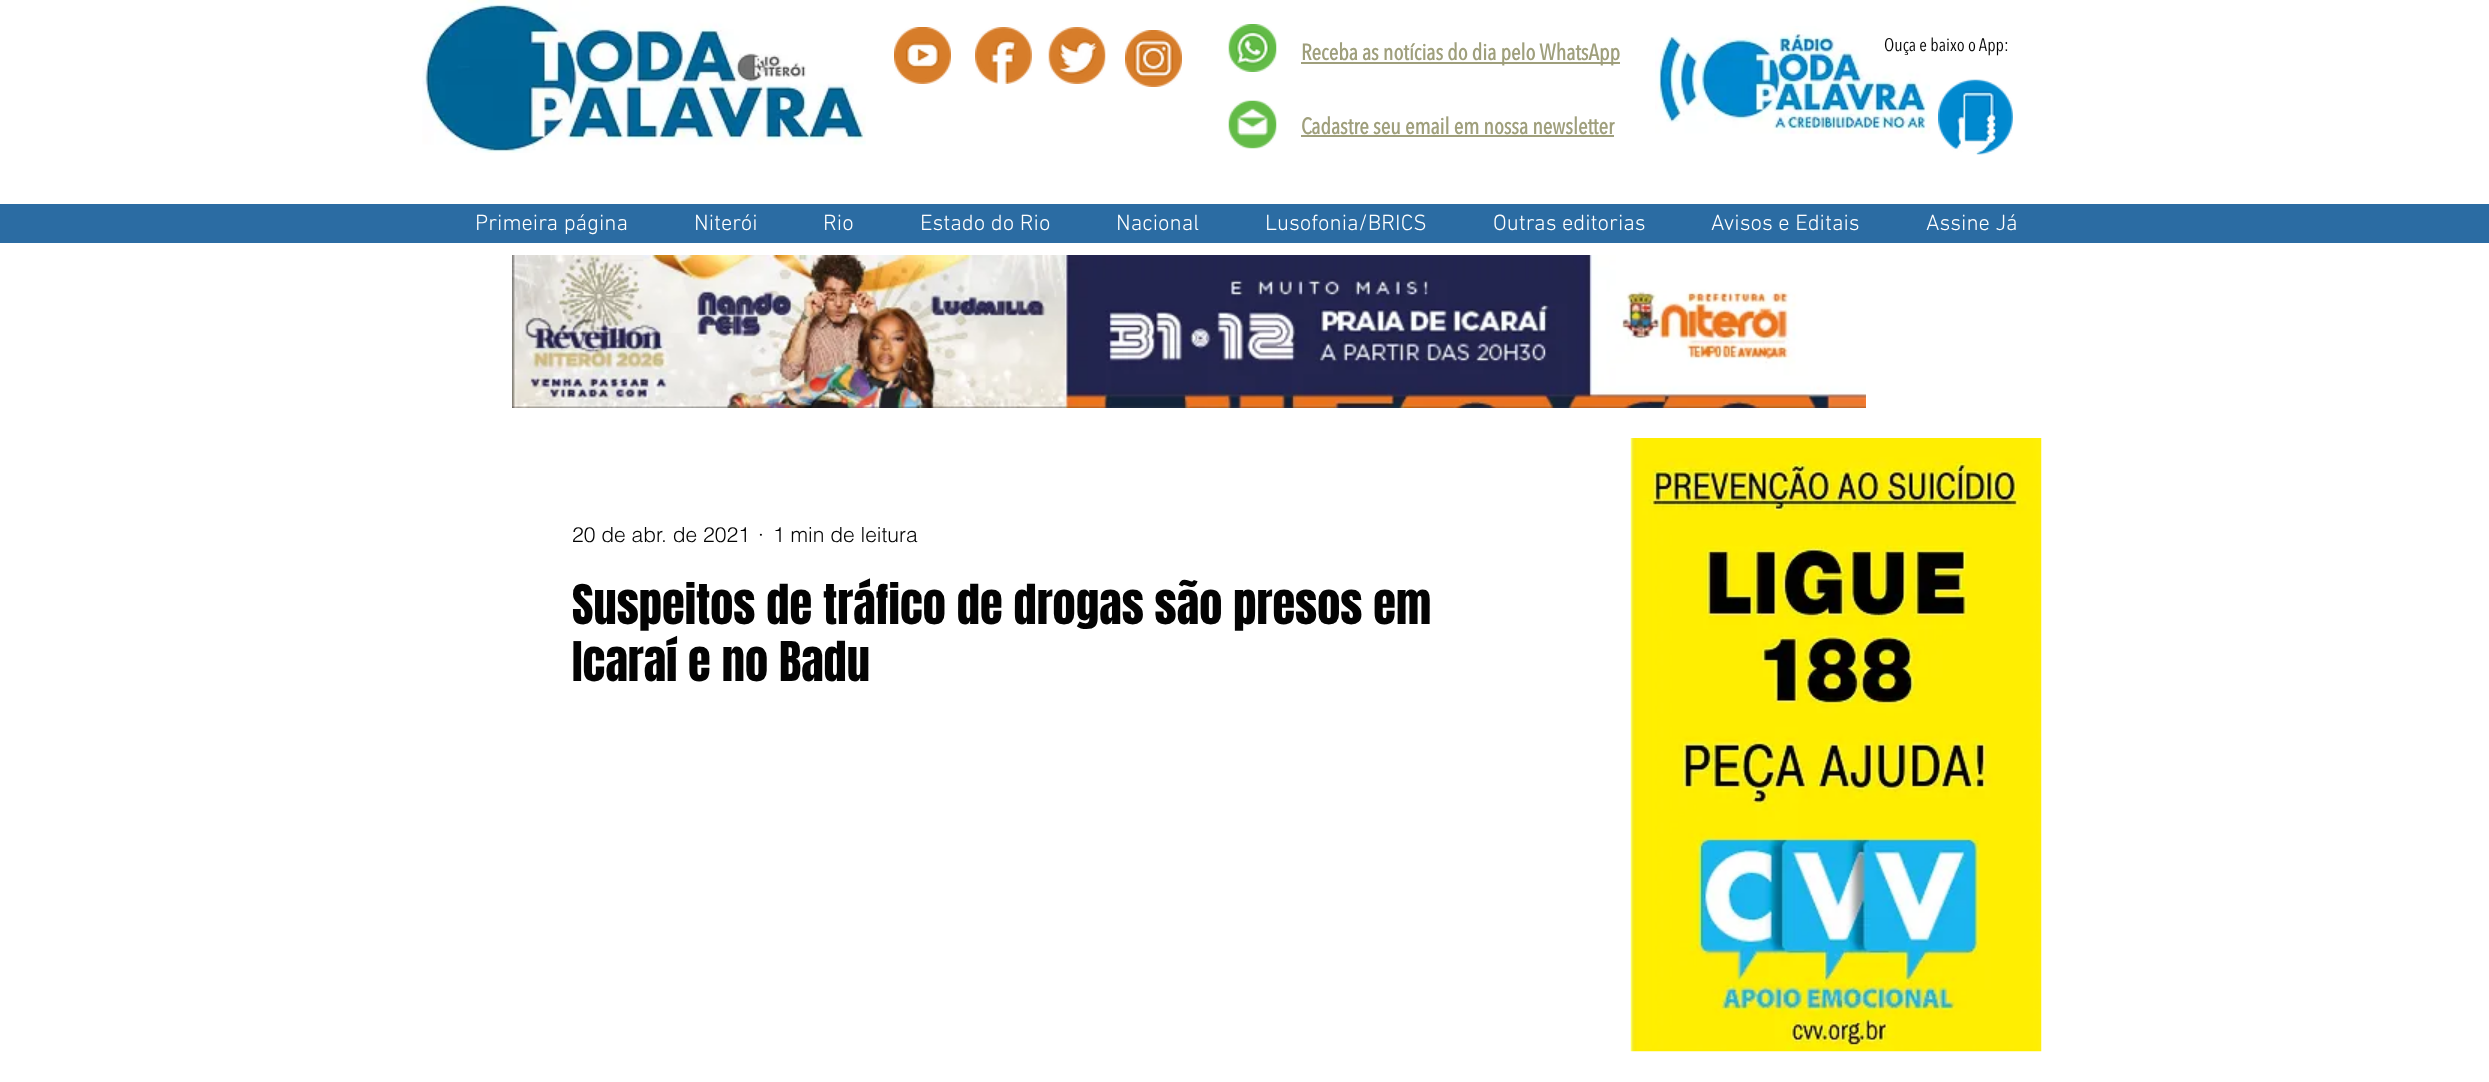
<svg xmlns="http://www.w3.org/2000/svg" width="2489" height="1082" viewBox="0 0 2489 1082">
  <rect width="100%" height="100%" fill="rgb(255,255,255)"/>
  <image x="422" y="0" width="444" height="153" href="pic1.png"/>
  <image x="894" y="27" width="57" height="57" href="pic2.png"/>
  <image x="975" y="27" width="57" height="57" href="pic3.png"/>
  <image x="1048" y="27" width="58" height="57" href="pic4.png"/>
  <image x="1125" y="30" width="57" height="57" href="pic5.png"/>
  <image x="1228" y="24" width="49" height="48" href="pic6.png"/>
  <rect x="1301" y="62" width="319" height="2" fill="rgb(159,159,124)"/>
  <text x="1301" y="60" font-family="Avenir Next" font-size="22.5" font-weight="bold" fill="rgb(159,159,124)">Receba as notícias do dia pelo WhatsApp</text>
  <image x="1655" y="26" width="276" height="108" href="pic7.png"/>
  <text x="1884" y="51" font-family="Avenir Next" font-size="18" fill="rgb(3,3,3)">Ouça e baixo o App:</text>
  <image x="1228" y="100" width="49" height="49" href="pic8.png"/>
  <text x="1301" y="134" font-family="Avenir Next" font-size="22.5" font-weight="bold" fill="rgb(159,159,124)">Cadastre seu email em nossa newsletter</text>
  <rect x="1301" y="135" width="313" height="2" fill="rgb(159,159,124)"/>
  <image x="1938" y="79" width="75" height="76" href="pic9.png"/>
  <rect x="0" y="204" width="2489" height="39" fill="rgb(43,108,163)"/>
  <g font-family="'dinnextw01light'" font-size="22.5" font-weight="300" fill="rgb(255,255,255)">
    <text x="475" y="230">Primeira página</text>
    <text x="694" y="230">Niterói</text>
    <text x="823" y="230">Rio</text>
    <text x="920" y="230">Estado do Rio</text>
    <text x="1116" y="230">Nacional</text>
    <text x="1265" y="230">Lusofonia/BRICS</text>
    <text x="1493" y="230">Outras editorias</text>
    <text x="1711" y="230">Avisos e Editais</text>
    <text x="1926" y="230">Assine Já</text>
  </g>
  <image x="512" y="255" width="1354" height="153" href="pic10.png"/>
  <g font-family="helvetica" font-size="21" font-weight="300" fill="rgb(3,3,3)">
    <text x="572" y="542">20 de abr. de 2021</text>
    <text x="758" y="542">·</text>
    <text x="773" y="542">1 min de leitura</text>
  </g>
  <g font-family="Anton" font-size="46.5" fill="rgb(3,3,3)">
    <text>
      <tspan x="572" y="624">Suspeitos de tráfico de drogas são presos em</tspan>
      <tspan x="572" y="681">Icaraí e no Badu</tspan>
    </text>
  </g>
  <image x="1630" y="438" width="412" height="614" href="pic11.png"/>
</svg>
